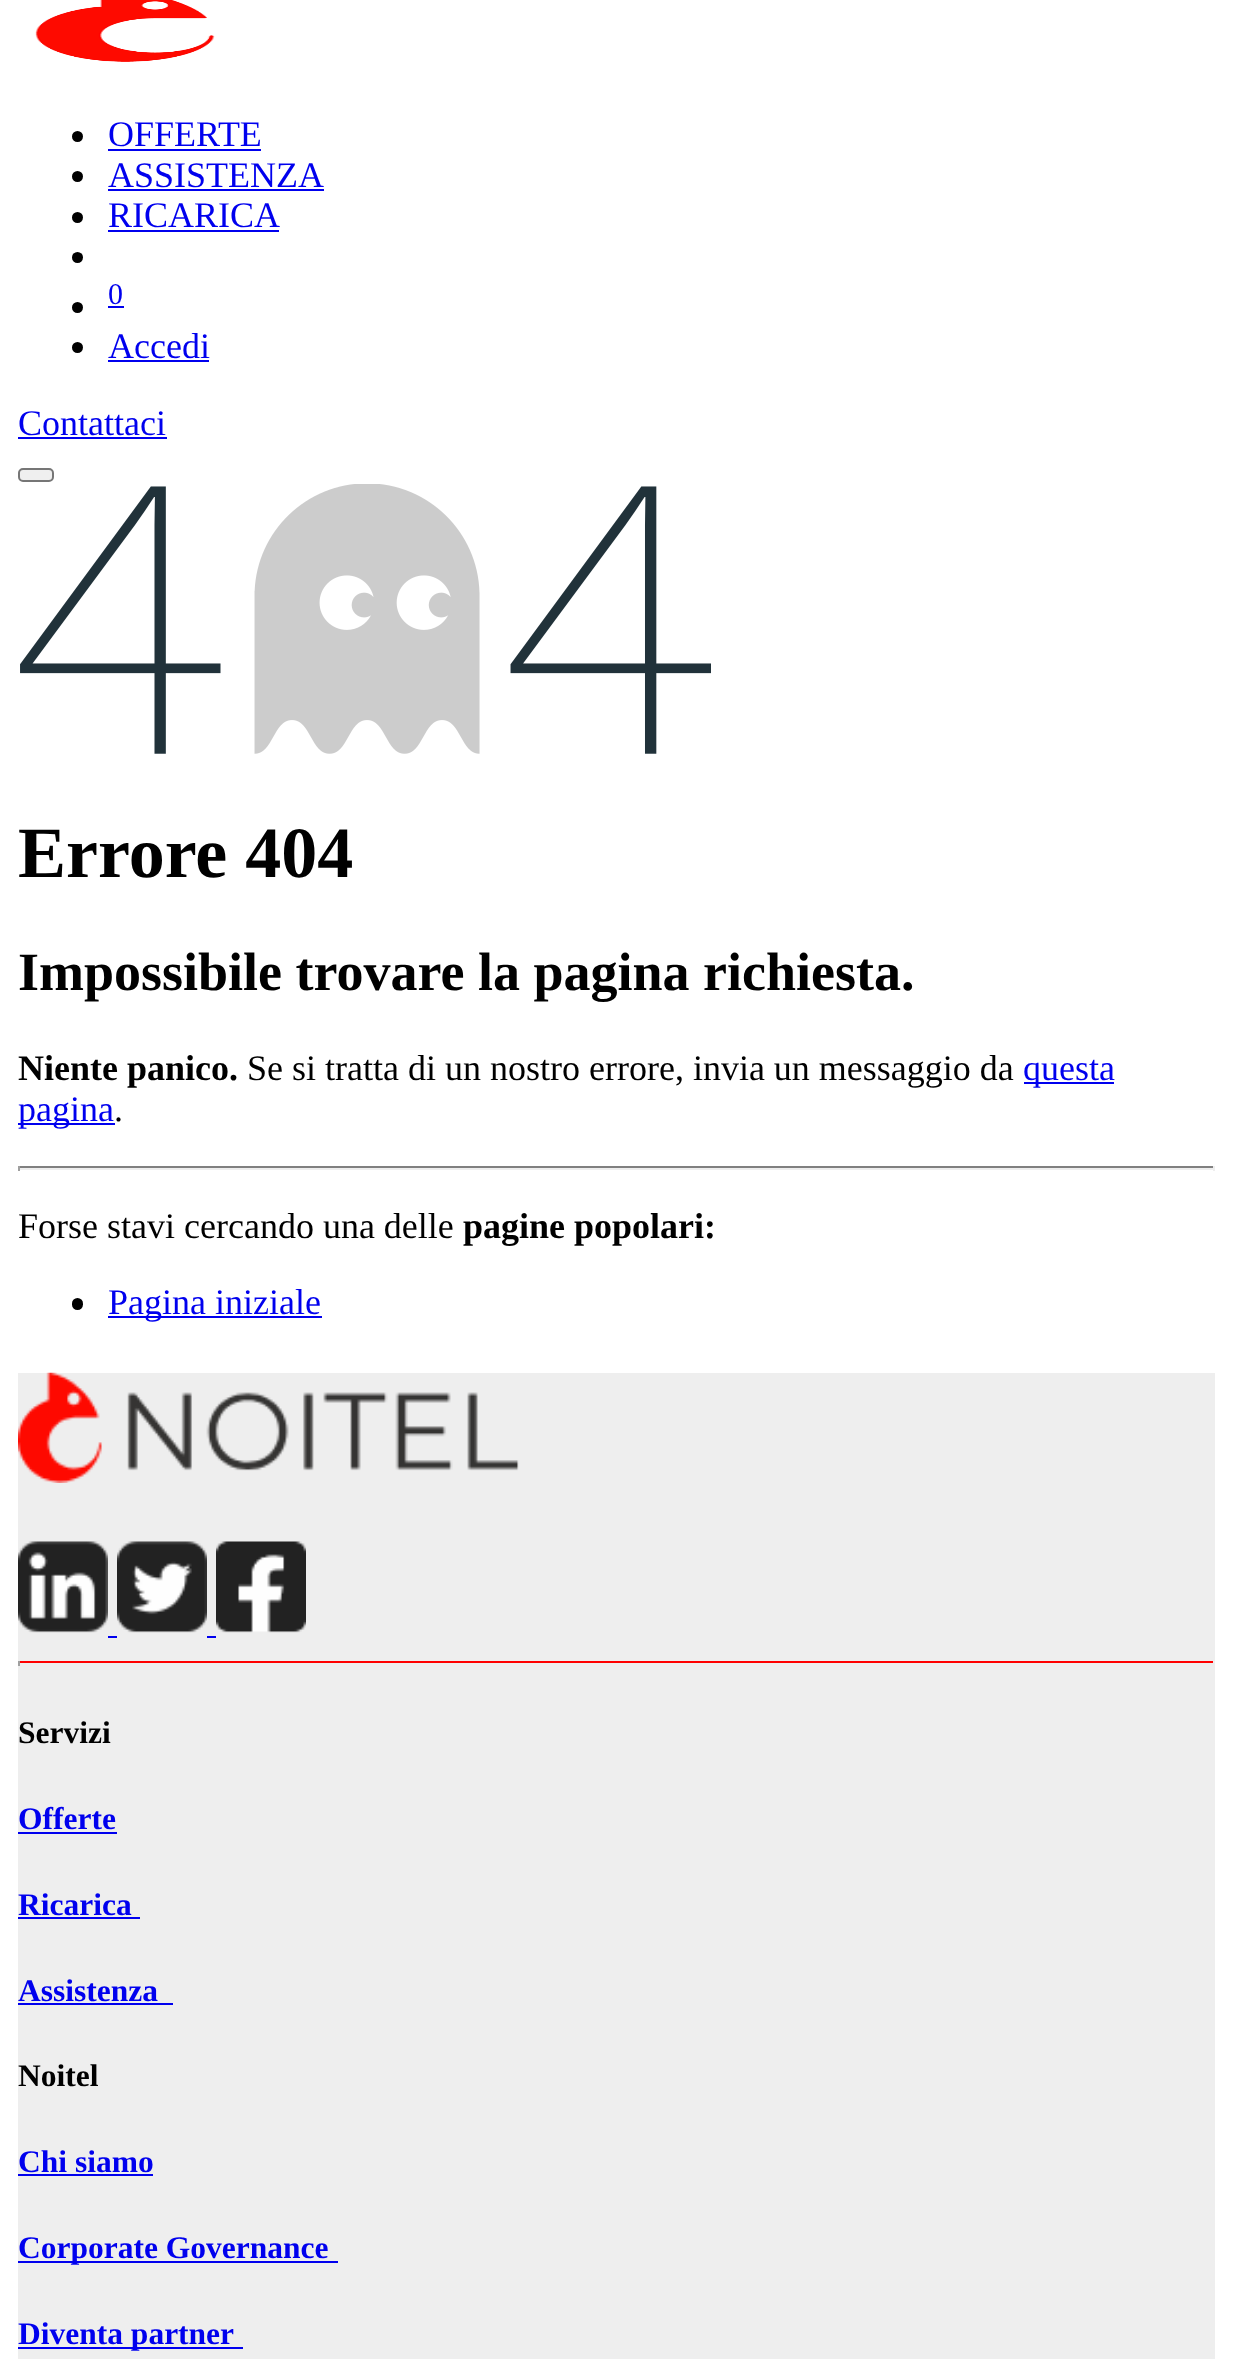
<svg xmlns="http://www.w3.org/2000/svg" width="1233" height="2359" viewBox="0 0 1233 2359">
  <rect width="100%" height="100%" fill="rgb(255,255,255)"/>
  <image x="35" y="0" width="180" height="62" href="pic1.png"/>
  <circle cx="77.5" cy="136.5" r="5.5" fill="rgb(0,0,0)"/>
  <text x="108" y="146" font-family="Liberation Serif" font-size="36" fill="rgb(0,0,238)">OFFERTE</text>
  <rect x="108" y="149" width="153" height="2" fill="rgb(0,0,238)"/>
  <circle cx="77.5" cy="176.5" r="5.5" fill="rgb(0,0,0)"/>
  <text x="108" y="187" font-family="Liberation Serif" font-size="36" fill="rgb(0,0,238)">ASSISTENZA</text>
  <rect x="108" y="189" width="216" height="2" fill="rgb(0,0,238)"/>
  <circle cx="77.5" cy="217.5" r="5.5" fill="rgb(0,0,0)"/>
  <text x="108" y="227" font-family="Liberation Serif" font-size="36" fill="rgb(0,0,238)">RICARICA</text>
  <rect x="108" y="230" width="171" height="2" fill="rgb(0,0,238)"/>
  <circle cx="77.5" cy="257.5" r="5.5" fill="rgb(0,0,0)"/>
  <text x="108" y="304" font-family="Liberation Serif" font-size="30" fill="rgb(0,0,238)">0</text>
  <rect x="108" y="306" width="16" height="2" fill="rgb(0,0,238)"/>
  <circle cx="77.5" cy="307.5" r="5.5" fill="rgb(0,0,0)"/>
  <circle cx="77.5" cy="347.5" r="5.5" fill="rgb(0,0,0)"/>
  <text x="108" y="358" font-family="Liberation Serif" font-size="36" fill="rgb(0,0,238)">Accedi</text>
  <rect x="108" y="360" width="101" height="2" fill="rgb(0,0,238)"/>
  <text x="18" y="435" font-family="Liberation Serif" font-size="36" fill="rgb(0,0,238)">Contattaci</text>
  <rect x="18" y="437" width="149" height="2" fill="rgb(0,0,238)"/>
  <rect x="19" y="469" width="34" height="12" rx="4" fill="rgb(239,239,239)" stroke="rgb(118,118,118)" stroke-width="2"/>
  <image x="20" y="484" width="691" height="270" href="pic2.png"/>
  <text x="18" y="877" font-family="Liberation Serif" font-size="72" font-weight="bold" fill="rgb(0,0,0)">Errore 404</text>
  <text x="18" y="990" font-family="Liberation Serif" font-size="54" font-weight="bold" fill="rgb(0,0,0)">Impossibile trovare la pagina richiesta.</text>
  <text x="18" y="1080" font-family="Liberation Serif" font-size="36" font-weight="bold" fill="rgb(0,0,0)">Niente panico.</text>
  <text x="247" y="1080" font-family="Liberation Serif" font-size="36" fill="rgb(0,0,0)">Se si tratta di un nostro errore, invia un messaggio da</text>
  <rect x="1024" y="1082" width="90" height="2" fill="rgb(0,0,238)"/>
  <text x="1023" y="1080" font-family="Liberation Serif" font-size="36" fill="rgb(0,0,238)">questa</text>
  <rect x="18" y="1123" width="97" height="2" fill="rgb(0,0,238)"/>
  <text x="18" y="1121" font-family="Liberation Serif" font-size="36" fill="rgb(0,0,238)">pagina</text>
  <text x="114" y="1121" font-family="Liberation Serif" font-size="36" fill="rgb(0,0,0)">.</text>
  <rect x="18" y="1166" width="1197" height="2" fill="rgb(128,128,128)"/>
  <rect x="1213" y="1166" width="2" height="5" fill="rgb(238,238,238)"/>
  <rect x="18" y="1168" width="1197" height="2" fill="rgb(238,238,238)"/>
  <rect x="18" y="1166" width="2" height="5" fill="rgb(159,159,159)"/>
  <text x="18" y="1238" font-family="Liberation Serif" font-size="36" fill="rgb(0,0,0)">Forse stavi cercando una delle</text>
  <text x="463" y="1238" font-family="Liberation Serif" font-size="36" font-weight="bold" fill="rgb(0,0,0)">pagine popolari:</text>
  <rect x="72" y="1298" width="11" height="12" rx="5.5" fill="rgb(0,0,0)"/>
  <rect x="108" y="1316" width="214" height="2" fill="rgb(0,0,238)"/>
  <text x="108" y="1314" font-family="Liberation Serif" font-size="36" fill="rgb(0,0,238)">Pagina iniziale</text>
  <rect x="18" y="1373" width="1197" height="986" fill="rgb(238,238,238)"/>
  <image x="18" y="1372" width="501" height="111" href="pic3.png"/>
  <image x="18" y="1541" width="90" height="92" href="pic4.png"/>
  <image x="117" y="1541" width="90" height="92" href="pic5.png"/>
  <image x="216" y="1541" width="90" height="92" href="pic6.png"/>
  <rect x="108" y="1636" width="9" height="2" fill="rgb(0,0,238)"/>
  <rect x="207" y="1636" width="9" height="2" fill="rgb(0,0,238)"/>
  <rect x="18" y="1661" width="1197" height="2" fill="rgb(255,0,0)"/>
  <rect x="1213" y="1661" width="2" height="5" fill="rgb(238,238,238)"/>
  <rect x="18" y="1661" width="2" height="5" fill="rgb(159,159,159)"/>
  <text x="18" y="1743" font-family="Liberation Serif" font-size="31.5" font-weight="bold" fill="rgb(0,0,0)">Servizi</text>
  <text x="18" y="1829" font-family="Liberation Serif" font-size="31.5" font-weight="bold" fill="rgb(0,0,238)">Offerte</text>
  <rect x="18" y="1832" width="99" height="2" fill="rgb(0,0,238)"/>
  <text x="18" y="1915" font-family="Liberation Serif" font-size="31.5" font-weight="bold" fill="rgb(0,0,238)">Ricarica</text>
  <rect x="18" y="1917" width="122" height="2" fill="rgb(0,0,238)"/>
  <text x="18" y="2001" font-family="Liberation Serif" font-size="31.5" font-weight="bold" fill="rgb(0,0,238)">Assistenza</text>
  <rect x="18" y="2003" width="155" height="2" fill="rgb(0,0,238)"/>
  <text x="18" y="2086" font-family="Liberation Serif" font-size="31.5" font-weight="bold" fill="rgb(0,0,0)">Noitel</text>
  <text x="18" y="2172" font-family="Liberation Serif" font-size="31.5" font-weight="bold" fill="rgb(0,0,238)">Chi siamo</text>
  <rect x="18" y="2174" width="135" height="2" fill="rgb(0,0,238)"/>
  <rect x="18" y="2261" width="320" height="2" fill="rgb(0,0,238)"/>
  <text x="18" y="2258" font-family="Liberation Serif" font-size="31.5" font-weight="bold" fill="rgb(0,0,238)">Corporate Governance</text>
  <rect x="18" y="2347" width="225" height="2" fill="rgb(0,0,238)"/>
  <text x="18" y="2344" font-family="Liberation Serif" font-size="31.5" font-weight="bold" fill="rgb(0,0,238)">Diventa partner</text>
</svg>
